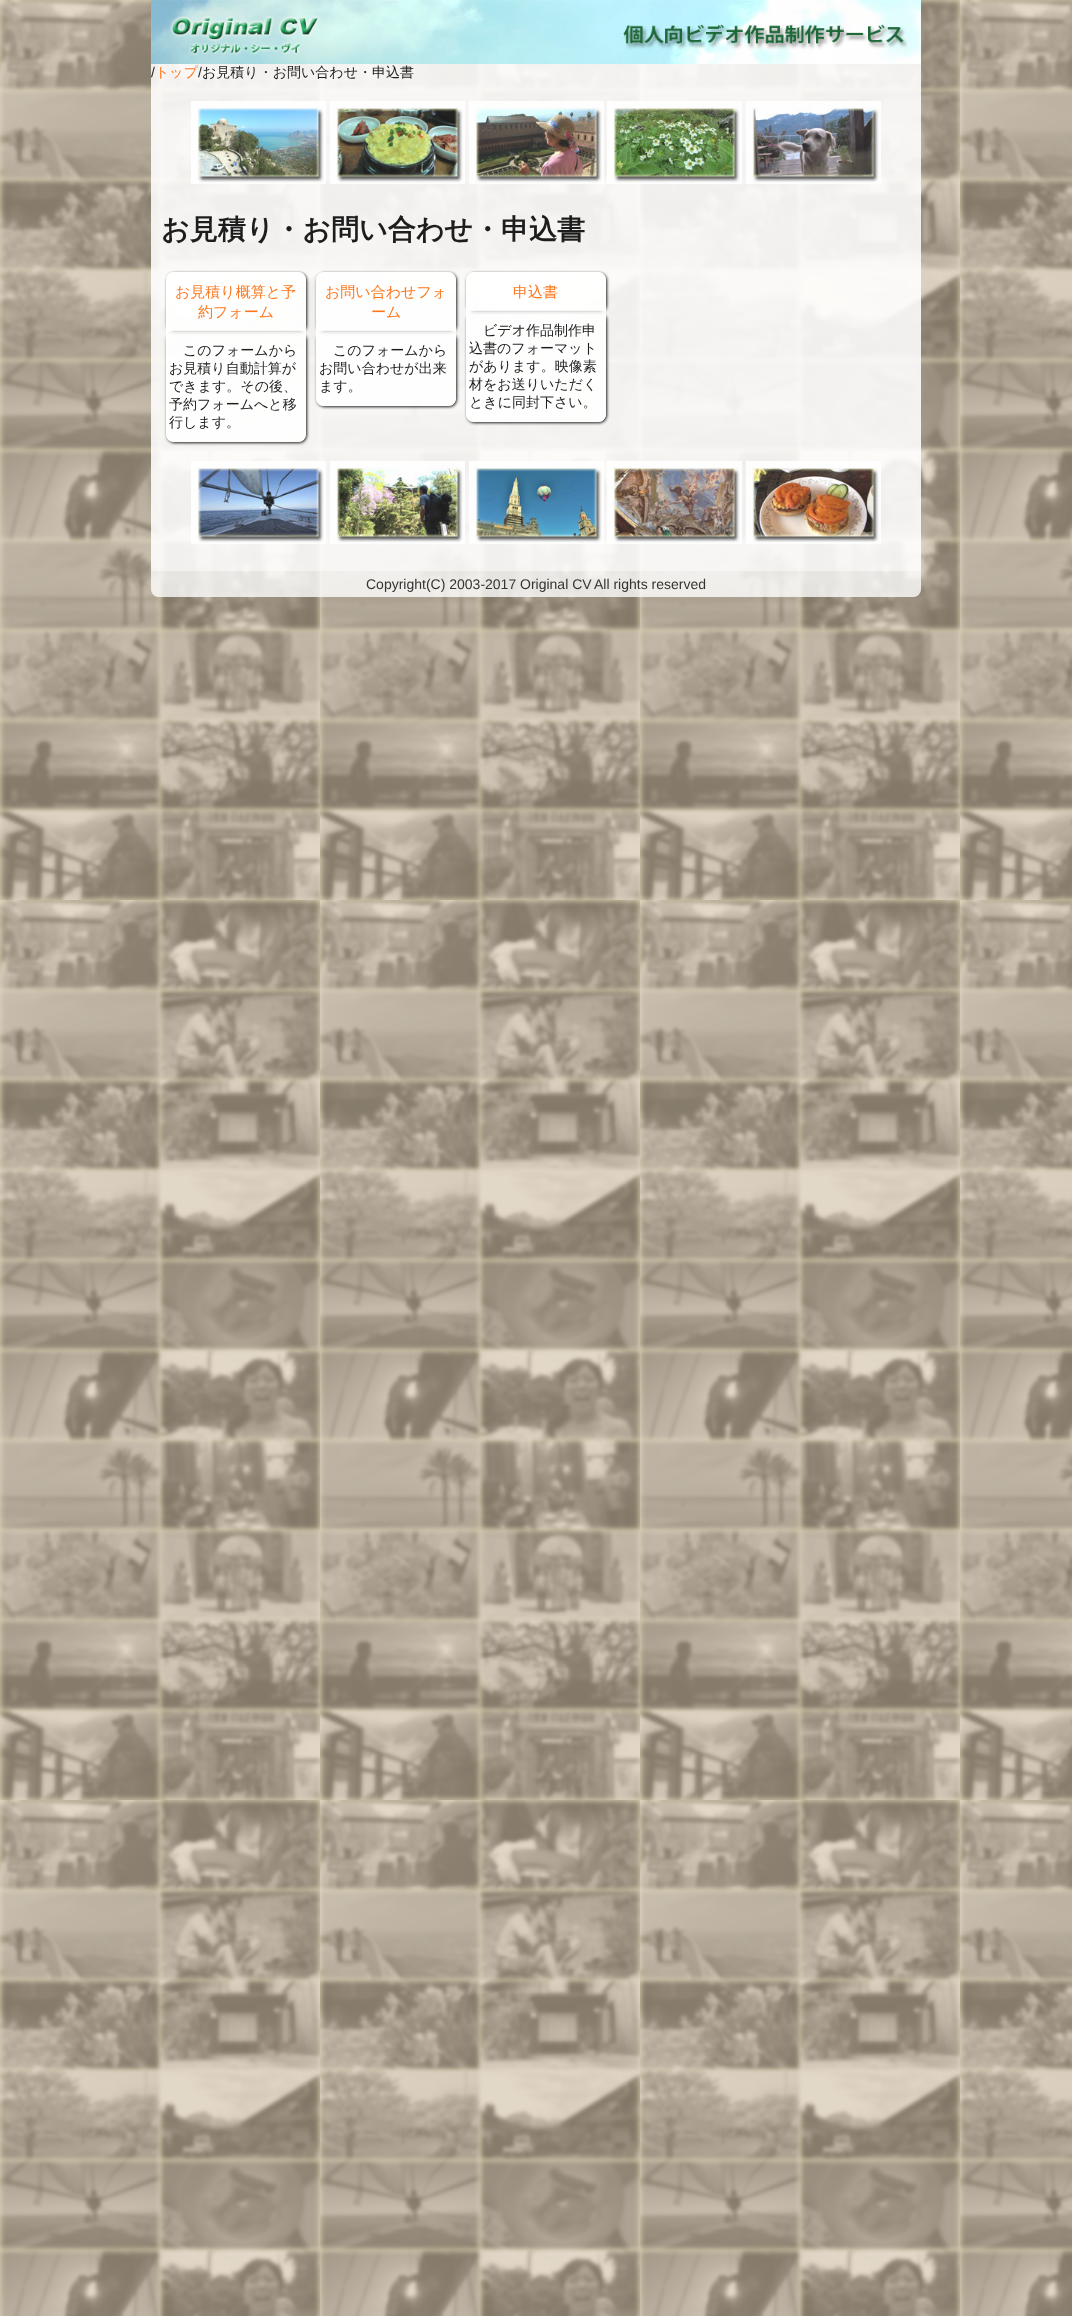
<svg xmlns="http://www.w3.org/2000/svg" width="1072" height="2316" viewBox="0 0 1072 2316">
  <defs>
    <clipPath id="clip1"><path d="M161 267H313V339H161ZM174 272H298C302.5 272 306 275.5 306 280V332H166V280C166 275.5 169.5 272 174 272Z" clip-rule="evenodd"/></clipPath>
    <clipPath id="clip2"><path d="M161 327H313V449H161ZM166 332H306V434C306 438.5 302.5 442 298 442H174C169.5 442 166 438.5 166 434Z" clip-rule="evenodd"/></clipPath>
    <clipPath id="clip3"><path d="M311 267H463V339H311ZM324 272H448C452.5 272 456 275.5 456 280V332H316V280C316 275.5 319.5 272 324 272Z" clip-rule="evenodd"/></clipPath>
    <clipPath id="clip4"><path d="M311 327H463V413H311ZM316 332H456V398C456 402.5 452.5 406 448 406H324C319.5 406 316 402.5 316 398Z" clip-rule="evenodd"/></clipPath>
    <clipPath id="clip5"><path d="M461 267H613V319H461ZM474 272H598C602.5 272 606 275.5 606 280V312H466V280C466 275.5 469.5 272 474 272Z" clip-rule="evenodd"/></clipPath>
    <clipPath id="clip6"><path d="M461 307H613V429H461ZM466 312H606V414C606 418.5 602.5 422 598 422H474C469.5 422 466 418.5 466 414Z" clip-rule="evenodd"/></clipPath>
  </defs>
  <rect width="100%" height="100%" fill="rgb(255,255,255)"/>
  <image x="0" y="0" width="1072" height="2316" href="pic1.png"/>
  <rect x="151" y="0" width="770" height="82" fill="rgba(255,255,255,0.88)"/>
  <image x="151" y="0" width="770" height="64" href="pic2.png"/>
  <text x="151" y="77" font-family="Liberation Sans" font-size="14" fill="rgb(29,29,29)">/</text>
  <text x="155" y="77" font-family="WenQuanYi Zen Hei" font-size="14" font-weight="500" fill="rgb(254,119,29)">トップ</text>
  <text x="198" y="77" font-family="Liberation Sans" font-size="14" fill="rgb(29,29,29)">/</text>
  <text x="202" y="77" font-family="WenQuanYi Zen Hei" font-size="14" font-weight="500" fill="rgb(29,29,29)">お見積り・お問い合わせ・申込書</text>
  <rect x="151" y="82" width="770" height="489" fill="rgba(255,255,255,0.88)"/>
  <image x="191" y="101" width="135" height="83" href="pic3.png"/>
  <image x="330" y="101" width="135" height="83" href="pic4.png"/>
  <image x="469" y="101" width="135" height="83" href="pic5.png"/>
  <image x="607" y="101" width="135" height="83" href="pic6.png"/>
  <image x="746" y="101" width="135" height="83" href="pic7.png"/>
  <text x="161" y="239" font-family="WenQuanYi Zen Hei" font-size="28" font-weight="bold" fill="rgb(29,29,29)">お見積り・お問い合わせ・申込書</text>
  <g clip-path="url(#clip1)">
    <rect x="167" y="273" width="140" height="60" rx="8" fill="rgba(0,0,0,0.88)" filter="blur(1.5px)"/>
  </g>
  <path d="M174 272H298C302.5 272 306 275.5 306 280V332H166V280C166 275.5 169.5 272 174 272Z" fill="rgba(255,255,255,0.88)"/>
  <g font-family="WenQuanYi Zen Hei" font-size="15" font-weight="500" fill="rgb(254,119,29)">
    <text x="175" y="297">お見積り概算と予</text>
    <text x="198" y="317">約フォーム</text>
  </g>
  <g clip-path="url(#clip2)">
    <rect x="167" y="333" width="140" height="110" rx="8" fill="rgba(0,0,0,0.88)" filter="blur(1.5px)"/>
  </g>
  <path d="M166 332H306V434C306 438.5 302.5 442 298 442H174C169.5 442 166 438.5 166 434Z" fill="rgba(255,255,255,0.88)"/>
  <g font-family="WenQuanYi Zen Hei" font-size="14" font-weight="500" fill="rgb(29,29,29)">
    <text x="183" y="355">このフォームから</text>
    <text>
      <tspan x="169" y="373">お見積り自動計算が</tspan>
      <tspan x="169" y="391">できます。その後、</tspan>
      <tspan x="169" y="409">予約フォームへと移</tspan>
      <tspan x="169" y="427">行します。</tspan>
    </text>
  </g>
  <g clip-path="url(#clip3)">
    <rect x="317" y="273" width="140" height="60" rx="8" fill="rgba(0,0,0,0.88)" filter="blur(1.5px)"/>
  </g>
  <path d="M324 272H448C452.5 272 456 275.5 456 280V332H316V280C316 275.5 319.5 272 324 272Z" fill="rgba(255,255,255,0.88)"/>
  <g font-family="WenQuanYi Zen Hei" font-size="15" font-weight="500" fill="rgb(254,119,29)">
    <text x="325" y="297">お問い合わせフォ</text>
    <text x="371" y="317">ーム</text>
  </g>
  <g clip-path="url(#clip4)">
    <rect x="317" y="333" width="140" height="74" rx="8" fill="rgba(0,0,0,0.88)" filter="blur(1.5px)"/>
  </g>
  <path d="M316 332H456V398C456 402.5 452.5 406 448 406H324C319.5 406 316 402.5 316 398Z" fill="rgba(255,255,255,0.88)"/>
  <g font-family="WenQuanYi Zen Hei" font-size="14" font-weight="500" fill="rgb(29,29,29)">
    <text x="333" y="355">このフォームから</text>
    <text>
      <tspan x="319" y="373">お問い合わせが出来</tspan>
      <tspan x="319" y="391">ます。</tspan>
    </text>
  </g>
  <g clip-path="url(#clip5)">
    <rect x="467" y="273" width="140" height="40" rx="8" fill="rgba(0,0,0,0.88)" filter="blur(1.5px)"/>
  </g>
  <path d="M474 272H598C602.5 272 606 275.5 606 280V312H466V280C466 275.5 469.5 272 474 272Z" fill="rgba(255,255,255,0.88)"/>
  <text x="513" y="297" font-family="WenQuanYi Zen Hei" font-size="15" font-weight="500" fill="rgb(254,119,29)">申込書</text>
  <g clip-path="url(#clip6)">
    <rect x="467" y="313" width="140" height="110" rx="8" fill="rgba(0,0,0,0.88)" filter="blur(1.5px)"/>
  </g>
  <path d="M466 312H606V414C606 418.5 602.5 422 598 422H474C469.5 422 466 418.5 466 414Z" fill="rgba(255,255,255,0.88)"/>
  <g font-family="WenQuanYi Zen Hei" font-size="14" font-weight="500" fill="rgb(29,29,29)">
    <text x="483" y="335">ビデオ作品制作申</text>
    <text>
      <tspan x="469" y="353">込書のフォーマット</tspan>
      <tspan x="469" y="371">があります。映像素</tspan>
      <tspan x="469" y="389">材をお送りいただく</tspan>
      <tspan x="469" y="407">ときに同封下さい。</tspan>
    </text>
  </g>
  <image x="191" y="461" width="135" height="83" href="pic8.png"/>
  <image x="330" y="461" width="135" height="83" href="pic9.png"/>
  <image x="469" y="461" width="135" height="83" href="pic10.png"/>
  <image x="607" y="461" width="135" height="83" href="pic11.png"/>
  <image x="746" y="461" width="135" height="83" href="pic12.png"/>
  <path d="M151 571H921V589C921 593.5 917.5 597 913 597H159C154.5 597 151 593.5 151 589Z" fill="rgba(255,255,255,0.78)"/>
  <g font-family="Liberation Sans" font-size="14" fill="rgb(52,52,51)">
    <text x="366" y="589">Copyright(C) 2003-2017</text>
    <text x="520" y="589">Original CV</text>
    <text x="594" y="589">All rights reserved</text>
  </g>
</svg>
